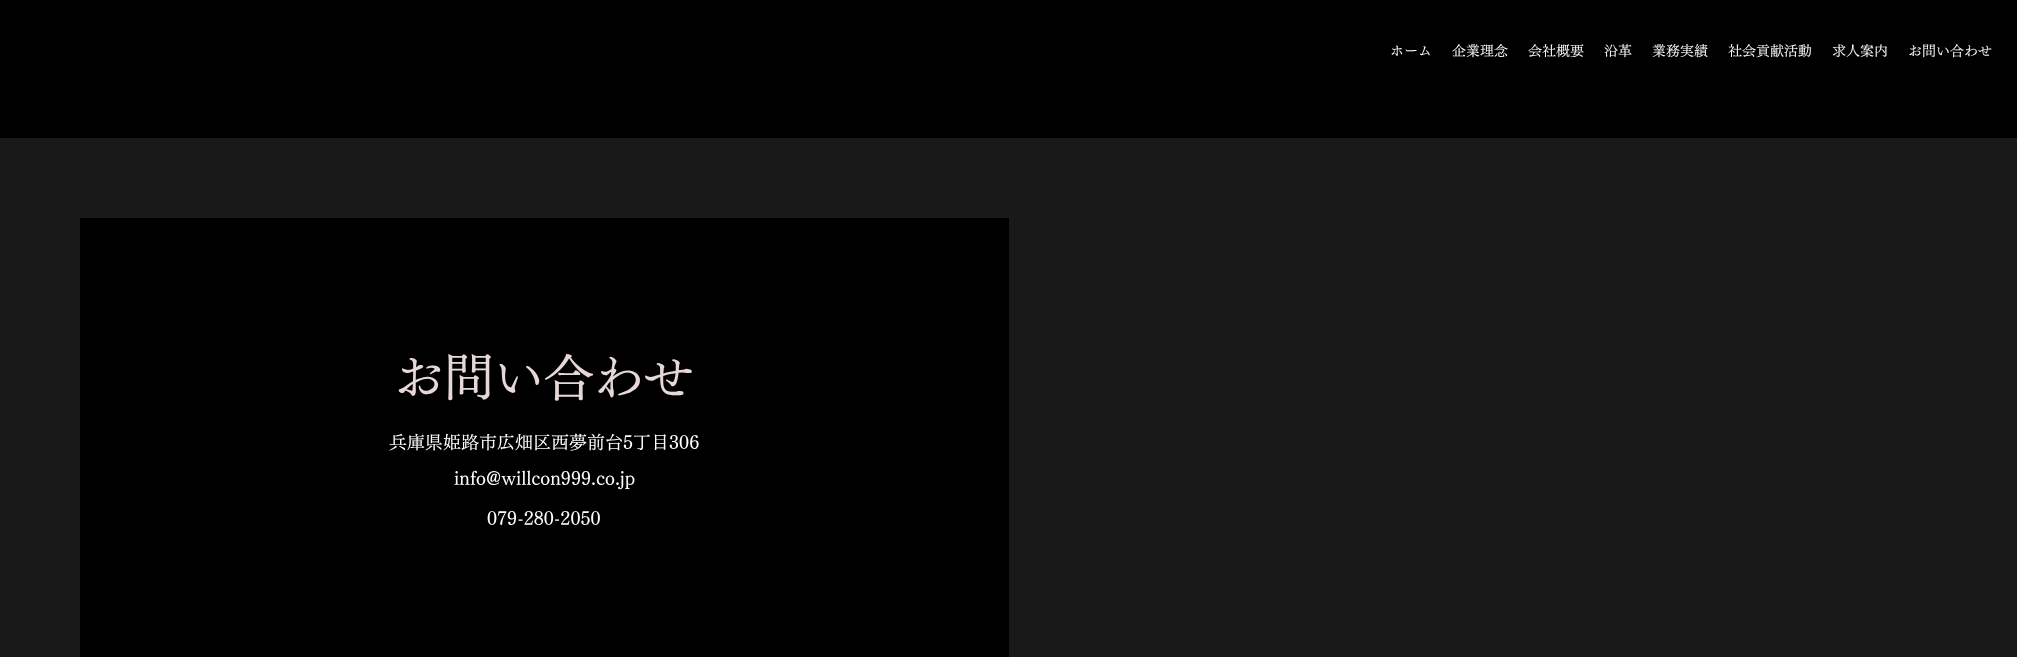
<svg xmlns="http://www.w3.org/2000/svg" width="2017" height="657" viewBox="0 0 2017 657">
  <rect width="100%" height="100%" fill="rgb(25,25,25)"/>
  <rect x="0" y="0" width="2017" height="138" fill="rgb(0,0,0)"/>
  <g font-family="'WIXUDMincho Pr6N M'" font-size="14" font-weight="500" fill="rgb(255,255,255)">
    <text x="1390" y="56">ホーム</text>
    <text x="1452" y="56">企業理念</text>
    <text x="1528" y="56">会社概要</text>
    <text x="1604" y="56">沿革</text>
    <text x="1652" y="56">業務実績</text>
    <text x="1728" y="56">社会貢献活動</text>
    <text x="1832" y="56">求人案内</text>
  </g>
  <text x="1908" y="56" font-family="'WIXUDMincho Pr6N M'" font-size="14" font-weight="500" fill="rgb(247,247,247)">お問い合わせ</text>
  <rect x="80" y="218" width="929" height="439" fill="rgb(0,0,0)"/>
  <text x="394" y="396" font-family="'WIXUDMincho Pr6N M'" font-size="50" font-weight="500" fill="rgb(230,216,215)">お問い合わせ</text>
  <g font-family="'WIXUDMincho Pr6N M'" font-size="18" font-weight="500" fill="rgb(255,255,255)">
    <text x="389" y="449">兵庫県姫路市広畑区西夢前台5丁目306</text>
    <text x="454" y="485">info@willcon999.co.jp</text>
    <text x="487" y="525">079-280-2050</text>
  </g>
</svg>
